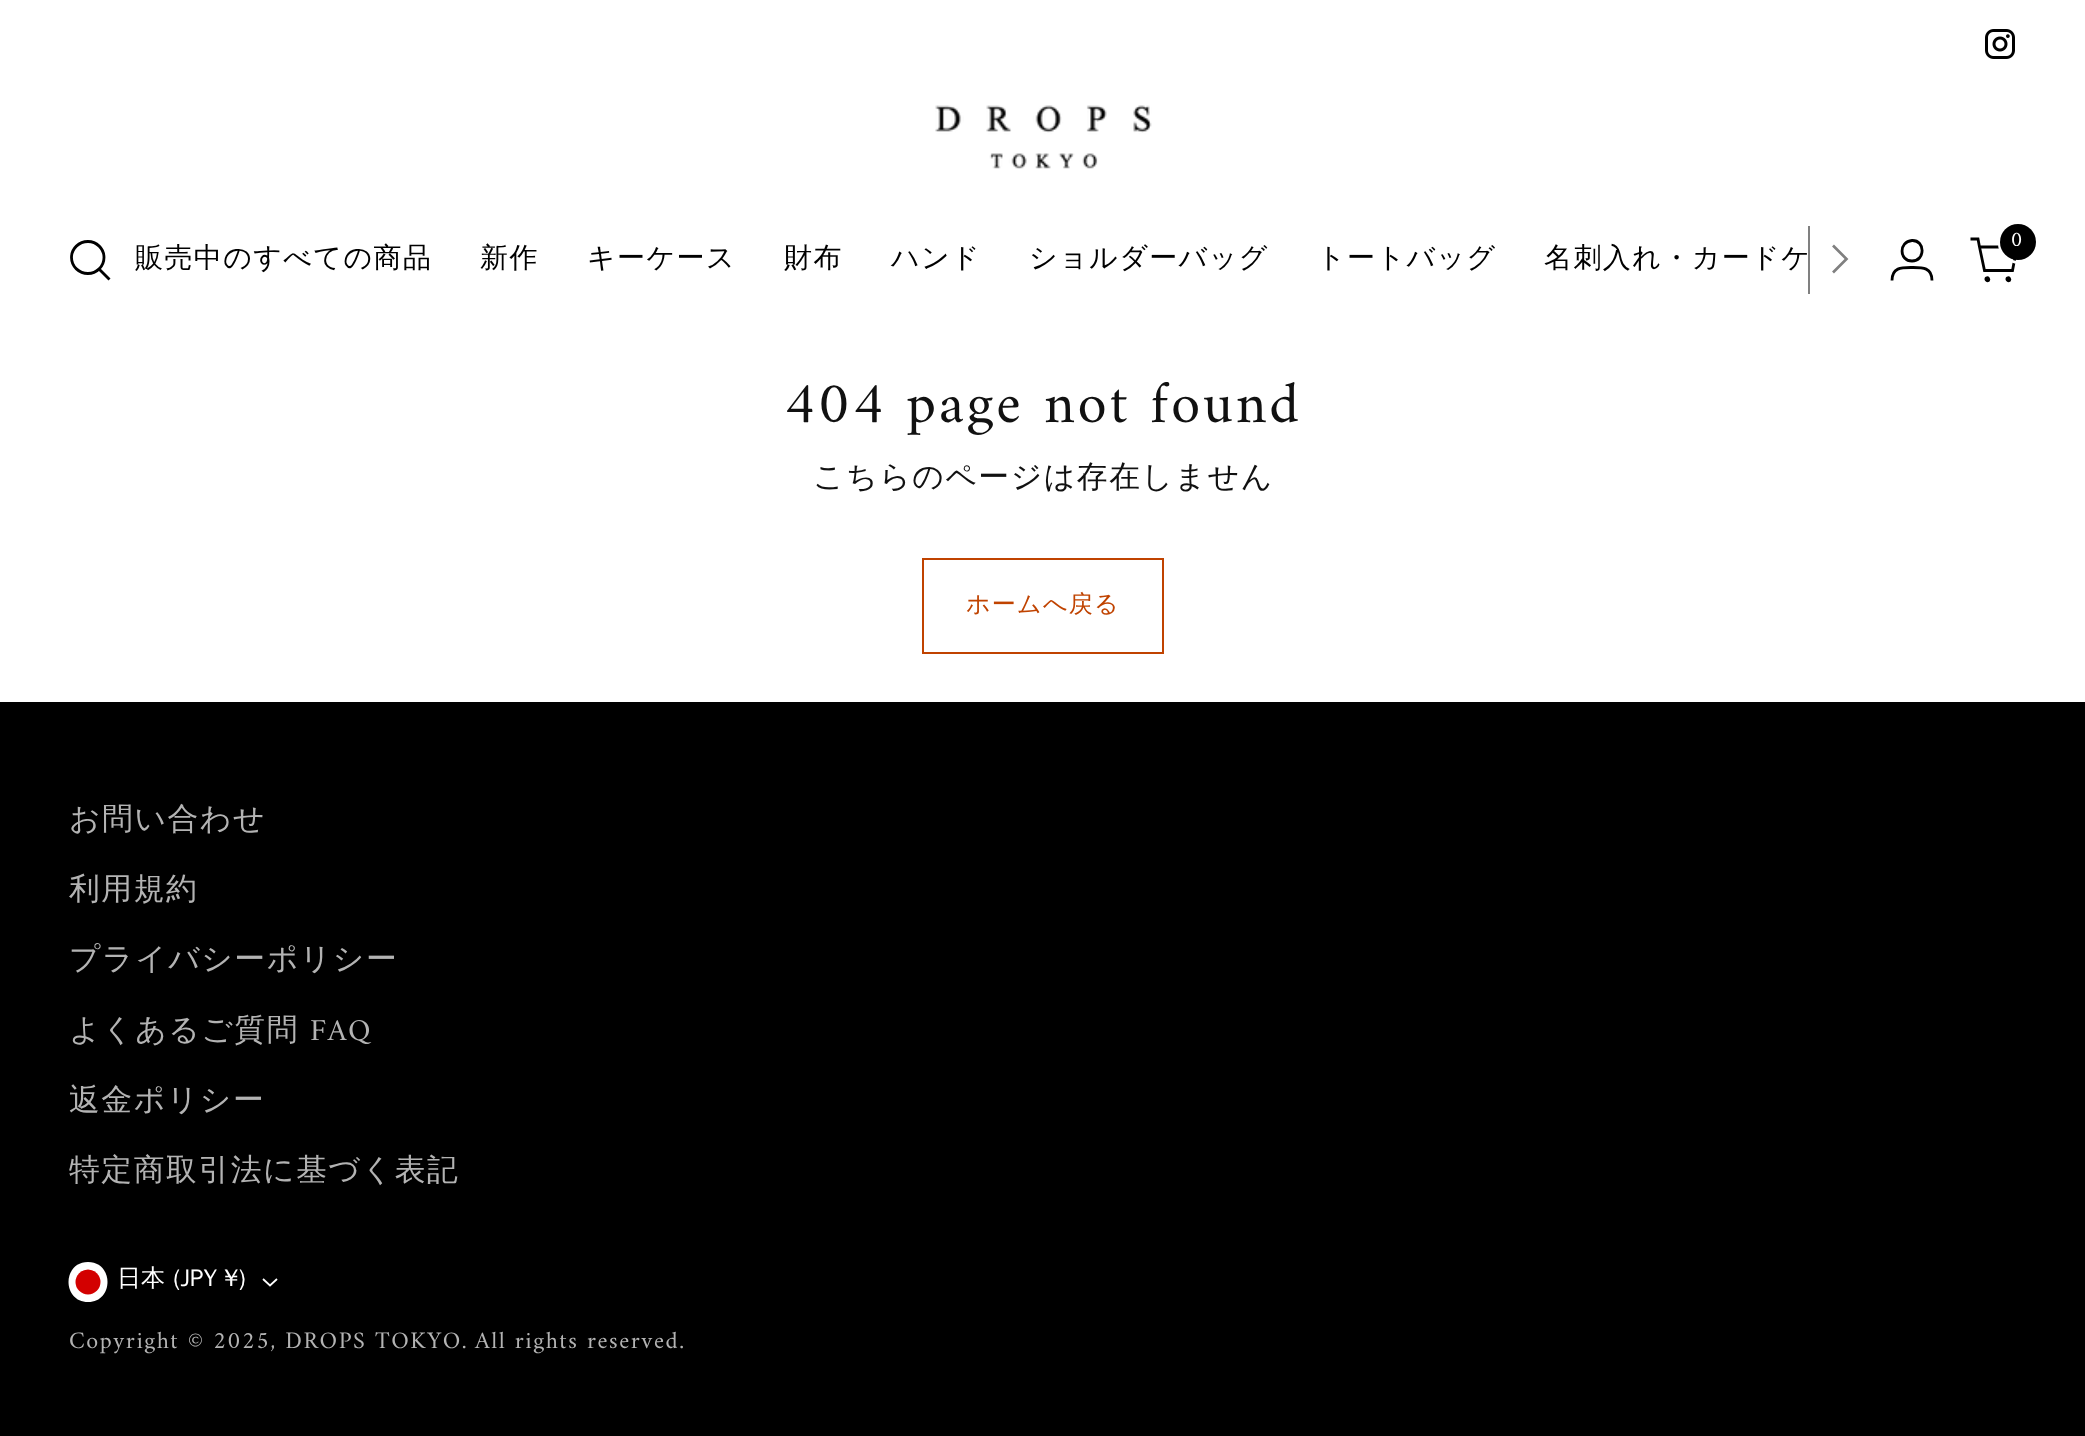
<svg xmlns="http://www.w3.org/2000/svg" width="2085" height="1436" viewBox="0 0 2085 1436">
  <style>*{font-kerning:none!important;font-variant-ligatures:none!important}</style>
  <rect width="100%" height="100%" fill="rgb(255,255,255)"/>
  <image x="1985" y="29" width="30" height="30" href="pic1.png"/>
  <image x="935" y="105" width="217" height="64" href="pic2.png"/>
  <path d="M88 273.5C96.5 273.5 104 266.5 104 257.5C104 248.5 96.5 241.5 88 241.5C79 241.5 71.5 248.5 71.5 257.5C71.5 266.5 79 273.5 88 273.5Z" fill="none" stroke="rgb(0,0,0)" stroke-width="2.8" stroke-linecap="round"/>
  <path d="M99.5 269.5L109.5 279.5" fill="none" stroke="rgb(0,0,0)" stroke-width="2.8"/>
  <g font-family="WenQuanYi Zen Hei" font-size="28" font-weight="500" letter-spacing="1.4" fill="rgb(0,0,0)">
    <text x="135" y="267">販売中のすべての商品</text>
    <text x="480" y="267">新作</text>
    <text x="587" y="267">キーケース</text>
    <text x="784" y="267">財布</text>
    <text x="891" y="267">ハンド</text>
    <text x="1029" y="267">ショルダーバッグ</text>
    <text x="1317" y="267">トートバッグ</text>
    <text x="1544" y="267">名刺入れ・カードケ</text>
  </g>
  <rect x="1808" y="226" width="2" height="68" fill="rgb(128,128,128)"/>
  <path d="M1833 272.5L1846.5 259L1833 245.5" fill="none" stroke="rgb(128,128,128)" stroke-width="2.7"/>
  <path d="M1912 261C1925.5 261 1925.5 240 1912 240.5C1898.5 241.5 1899 261 1912 261ZM1892 280.5C1892 267 1902 267.5 1912 267.5C1922 267.5 1932 267 1932 280.5" fill="none" stroke="rgb(0,0,0)" stroke-width="2.8"/>
  <path d="M1979.5 247H2017L2012.5 270.5H1984.5ZM1979.5 247L1978 239H1970.5" fill="none" stroke="rgb(0,0,0)" stroke-width="2.8"/>
  <circle cx="2019" cy="243" r="19.5" fill="none" stroke="rgb(255,255,255)" stroke-width="3"/>
  <circle cx="2018" cy="242" r="18" fill="rgb(0,0,0)"/>
  <text x="2011" y="246" font-family="Amiri" font-size="21" letter-spacing="1.55" fill="rgb(255,255,255)">0</text>
  <path d="M1986.5 278C1988 277 1989.5 279 1988.5 280.5C1986.5 281.5 1985 279 1986.5 278ZM2007.5 278C2009 277 2010.5 279 2009.5 280.5C2007.5 281.5 2006 279 2007.5 278Z" fill="none" stroke="rgb(0,0,0)" stroke-width="2.8" stroke-linecap="round" stroke-linejoin="bevel"/>
  <text x="784" y="422" font-family="Amiri" font-size="58.9" letter-spacing="2.9" fill="rgb(17,17,17)">404 page not found</text>
  <text x="813" y="487" font-family="WenQuanYi Zen Hei" font-size="30.8" font-weight="500" letter-spacing="1.55" fill="rgb(17,17,17)">こちらのページは存在しません</text>
  <rect x="923" y="559" width="240" height="94" fill="none" stroke="rgb(192,67,0)" stroke-width="2"/>
  <text x="966" y="612" font-family="WenQuanYi Zen Hei" font-size="24" font-weight="500" letter-spacing="1.25" fill="rgb(192,67,0)">ホームへ戻る</text>
  <rect x="0" y="702" width="2085" height="734" fill="rgb(0,0,0)"/>
  <g font-family="WenQuanYi Zen Hei" font-size="30.8" font-weight="500" letter-spacing="1.55" fill="rgb(179,179,179)">
    <text x="69" y="829">お問い合わせ</text>
    <text x="69" y="899">利用規約</text>
    <text x="69" y="969">プライバシーポリシー</text>
    <text x="69" y="1040">よくあるご質問</text>
  </g>
  <text x="310" y="1040" font-family="Amiri" font-size="30.8" letter-spacing="1.55" fill="rgb(179,179,179)">FAQ</text>
  <g font-family="WenQuanYi Zen Hei" font-size="30.8" font-weight="500" letter-spacing="1.55" fill="rgb(179,179,179)">
    <text x="69" y="1110">返金ポリシー</text>
    <text x="69" y="1180">特定商取引法に基づく表記</text>
  </g>
  <path d="M88 1262C62 1262 62 1302 88 1302C114 1302 114 1262 88 1262Z" fill="rgb(255,255,255)"/>
  <circle cx="88" cy="1282" r="12.5" fill="rgb(211,0,0)"/>
  <g font-family="WenQuanYi Zen Hei" font-size="24" font-weight="500" fill="rgb(255,255,255)">
    <text x="117" y="1286" word-spacing="1">日本 (JPY</text>
    <text x="224" y="1286">¥)</text>
  </g>
  <path d="M263 1279L270 1285.5L277 1279" fill="none" stroke="rgb(255,255,255)" stroke-width="1.8"/>
  <g font-family="Amiri" font-size="24" letter-spacing="1.55" fill="rgb(179,179,179)">
    <text x="69" y="1348">Copyright © 2025, DROPS TOKYO.</text>
    <text x="475" y="1348">All rights reserved.</text>
  </g>
</svg>
